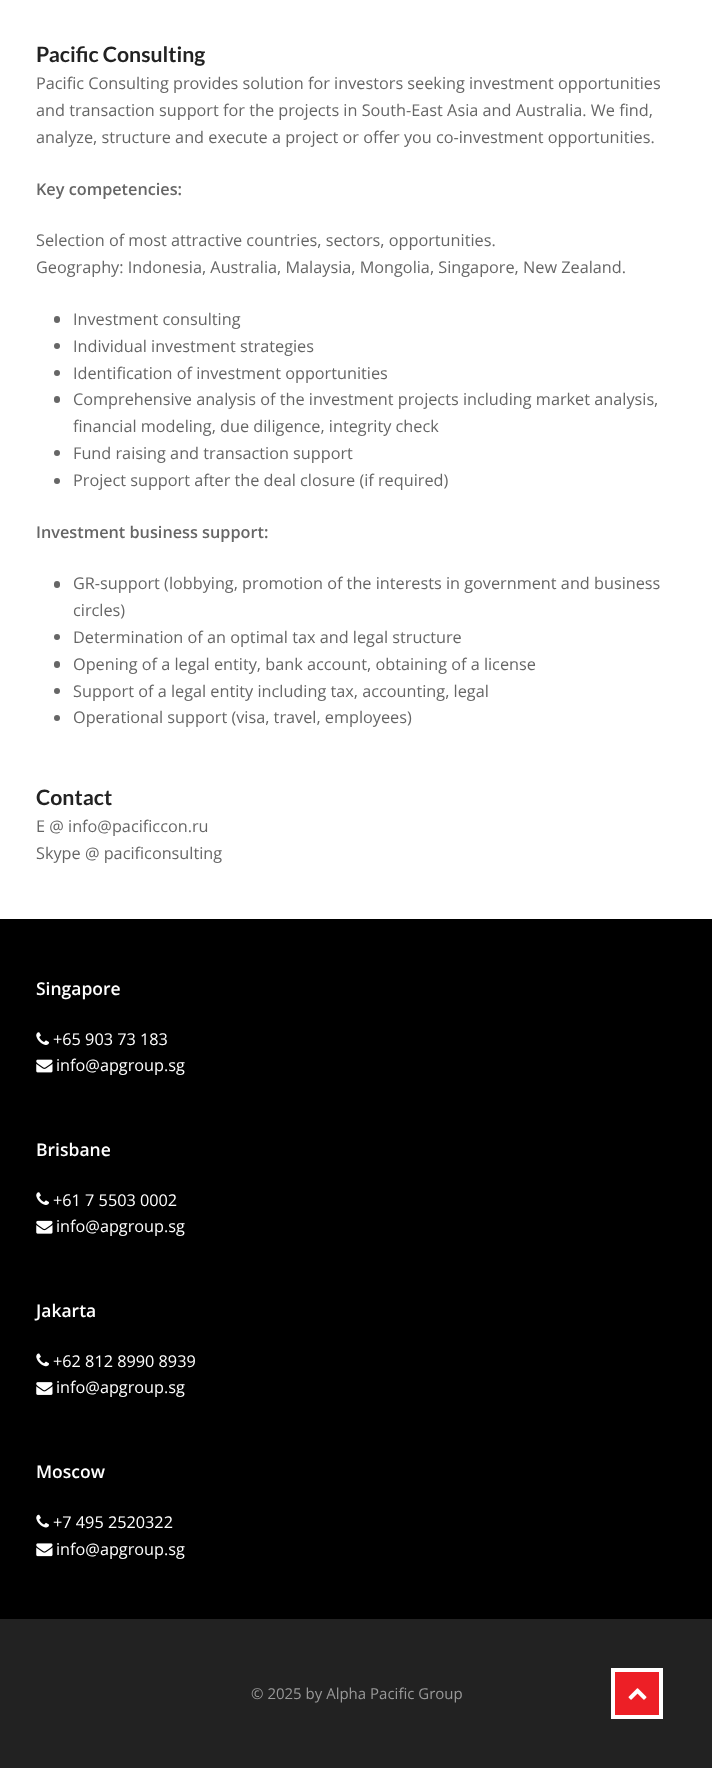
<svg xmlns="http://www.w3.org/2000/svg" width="712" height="1768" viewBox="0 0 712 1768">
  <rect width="100%" height="100%" fill="rgb(255,255,255)"/>
  <text x="36" y="62" font-family="Lato" font-size="21.25" font-weight="bold" fill="rgb(34,34,34)">Pacific Consulting</text>
  <g font-family="Open Sans" font-size="16.25" fill="rgb(102,102,102)">
    <text>
      <tspan x="36" y="89">Pacific Consulting provides solution for investors seeking investment opportunities</tspan>
      <tspan x="36" y="116">and transaction support for the projects in South-East Asia and Australia. We find,</tspan>
      <tspan x="36" y="143">analyze, structure and execute a project or offer you co-investment opportunities.</tspan>
    </text>
  </g>
  <text x="36" y="195" font-family="Open Sans" font-size="16.25" font-weight="600" fill="rgb(102,102,102)">Key competencies:</text>
  <g font-family="Open Sans" font-size="16.25" fill="rgb(102,102,102)">
    <text>
      <tspan x="36" y="246">Selection of most attractive countries, sectors, opportunities.</tspan>
      <tspan x="36" y="273">Geography: Indonesia, Australia, Malaysia, Mongolia, Singapore, New Zealand.</tspan>
    </text>
  </g>
  <rect x="54" y="316" width="6" height="7" rx="3" fill="rgb(102,102,102)"/>
  <text x="73" y="325" font-family="Open Sans" font-size="16.25" fill="rgb(102,102,102)">Investment consulting</text>
  <circle cx="57" cy="346" r="3" fill="rgb(102,102,102)"/>
  <text x="73" y="352" font-family="Open Sans" font-size="16.25" fill="rgb(102,102,102)">Individual investment strategies</text>
  <circle cx="57" cy="373" r="3" fill="rgb(102,102,102)"/>
  <text x="73" y="379" font-family="Open Sans" font-size="16.25" fill="rgb(102,102,102)">Identification of investment opportunities</text>
  <rect x="54" y="396" width="6" height="7" rx="3" fill="rgb(102,102,102)"/>
  <g font-family="Open Sans" font-size="16.25" fill="rgb(102,102,102)">
    <text>
      <tspan x="73" y="405">Comprehensive analysis of the investment projects including market analysis,</tspan>
      <tspan x="73" y="432">financial modeling, due diligence, integrity check</tspan>
    </text>
  </g>
  <circle cx="57" cy="453" r="3" fill="rgb(102,102,102)"/>
  <text x="73" y="459" font-family="Open Sans" font-size="16.25" fill="rgb(102,102,102)">Fund raising and transaction support</text>
  <circle cx="57" cy="481" r="3" fill="rgb(102,102,102)"/>
  <text x="73" y="486" font-family="Open Sans" font-size="16.25" fill="rgb(102,102,102)">Project support after the deal closure (if required)</text>
  <text x="36" y="538" font-family="Open Sans" font-size="16.25" font-weight="600" fill="rgb(102,102,102)">Investment business support:</text>
  <rect x="54" y="581" width="6" height="7" rx="3" fill="rgb(102,102,102)"/>
  <g font-family="Open Sans" font-size="16.25" fill="rgb(102,102,102)">
    <text>
      <tspan x="73" y="589">GR-support (lobbying, promotion of the interests in government and business</tspan>
      <tspan x="73" y="616">circles)</tspan>
    </text>
  </g>
  <circle cx="57" cy="637" r="3" fill="rgb(102,102,102)"/>
  <text x="73" y="643" font-family="Open Sans" font-size="16.25" fill="rgb(102,102,102)">Determination of an optimal tax and legal structure</text>
  <rect x="54" y="661" width="6" height="7" rx="3" fill="rgb(102,102,102)"/>
  <text x="73" y="670" font-family="Open Sans" font-size="16.25" fill="rgb(102,102,102)">Opening of a legal entity, bank account, obtaining of a license</text>
  <circle cx="57" cy="691" r="3" fill="rgb(102,102,102)"/>
  <text x="73" y="697" font-family="Open Sans" font-size="16.25" fill="rgb(102,102,102)">Support of a legal entity including tax, accounting, legal</text>
  <circle cx="57" cy="718" r="3" fill="rgb(102,102,102)"/>
  <text x="73" y="723" font-family="Open Sans" font-size="16.25" fill="rgb(102,102,102)">Operational support (visa, travel, employees)</text>
  <text x="36" y="805" font-family="Lato" font-size="21.25" font-weight="bold" fill="rgb(34,34,34)">Contact</text>
  <g font-family="Open Sans" font-size="16.25" fill="rgb(102,102,102)">
    <text>
      <tspan x="36" y="832">E @ info@pacificcon.ru</tspan>
      <tspan x="36" y="859">Skype @ pacificonsulting</tspan>
    </text>
  </g>
  <rect x="0" y="919" width="712" height="700" fill="rgb(0,0,0)"/>
  <text x="36" y="995" font-family="Open Sans" font-size="17.5" font-weight="600" fill="rgb(255,255,255)">Singapore</text>
  <image x="36" y="1032" width="13" height="13" href="pic1.png"/>
  <text x="53" y="1045" font-family="Open Sans" font-size="16.25" fill="rgb(255,255,255)">+65 903 73 183</text>
  <image x="36" y="1059" width="17" height="14" href="pic2.png"/>
  <text x="56" y="1071" font-family="Open Sans" font-size="16.25" fill="rgb(255,255,255)">info@apgroup.sg</text>
  <text x="36" y="1156" font-family="Open Sans" font-size="17.5" font-weight="600" fill="rgb(255,255,255)">Brisbane</text>
  <image x="36" y="1192" width="13" height="13" href="pic1.png"/>
  <text x="53" y="1206" font-family="Open Sans" font-size="16.25" fill="rgb(255,255,255)">+61 7 5503 0002</text>
  <image x="36" y="1220" width="17" height="14" href="pic3.png"/>
  <text x="56" y="1232" font-family="Open Sans" font-size="16.25" fill="rgb(255,255,255)">info@apgroup.sg</text>
  <text x="36" y="1317" font-family="Open Sans" font-size="17.5" font-weight="600" fill="rgb(255,255,255)">Jakarta</text>
  <image x="36" y="1353" width="13" height="14" href="pic4.png"/>
  <text x="53" y="1367" font-family="Open Sans" font-size="16.25" fill="rgb(255,255,255)">+62 812 8990 8939</text>
  <image x="36" y="1382" width="17" height="13" href="pic5.png"/>
  <text x="56" y="1393" font-family="Open Sans" font-size="16.25" fill="rgb(255,255,255)">info@apgroup.sg</text>
  <text x="36" y="1478" font-family="Open Sans" font-size="17.5" font-weight="600" fill="rgb(255,255,255)">Moscow</text>
  <image x="36" y="1514" width="13" height="14" href="pic6.png"/>
  <text x="53" y="1528" font-family="Open Sans" font-size="16.25" fill="rgb(255,255,255)">+7 495 2520322</text>
  <image x="36" y="1543" width="17" height="14" href="pic7.png"/>
  <text x="56" y="1555" font-family="Open Sans" font-size="16.25" fill="rgb(255,255,255)">info@apgroup.sg</text>
  <rect x="0" y="1619" width="712" height="149" fill="rgb(34,34,34)"/>
  <text x="251" y="1699" font-family="Open Sans" font-size="15" fill="rgb(153,153,153)">© 2025 by Alpha Pacific Group</text>
  <rect x="613" y="1670" width="48" height="47" fill="rgb(237,31,38)" stroke="rgb(255,255,255)" stroke-width="4"/>
  <image x="628" y="1688" width="19" height="12" href="pic8.png"/>
</svg>
